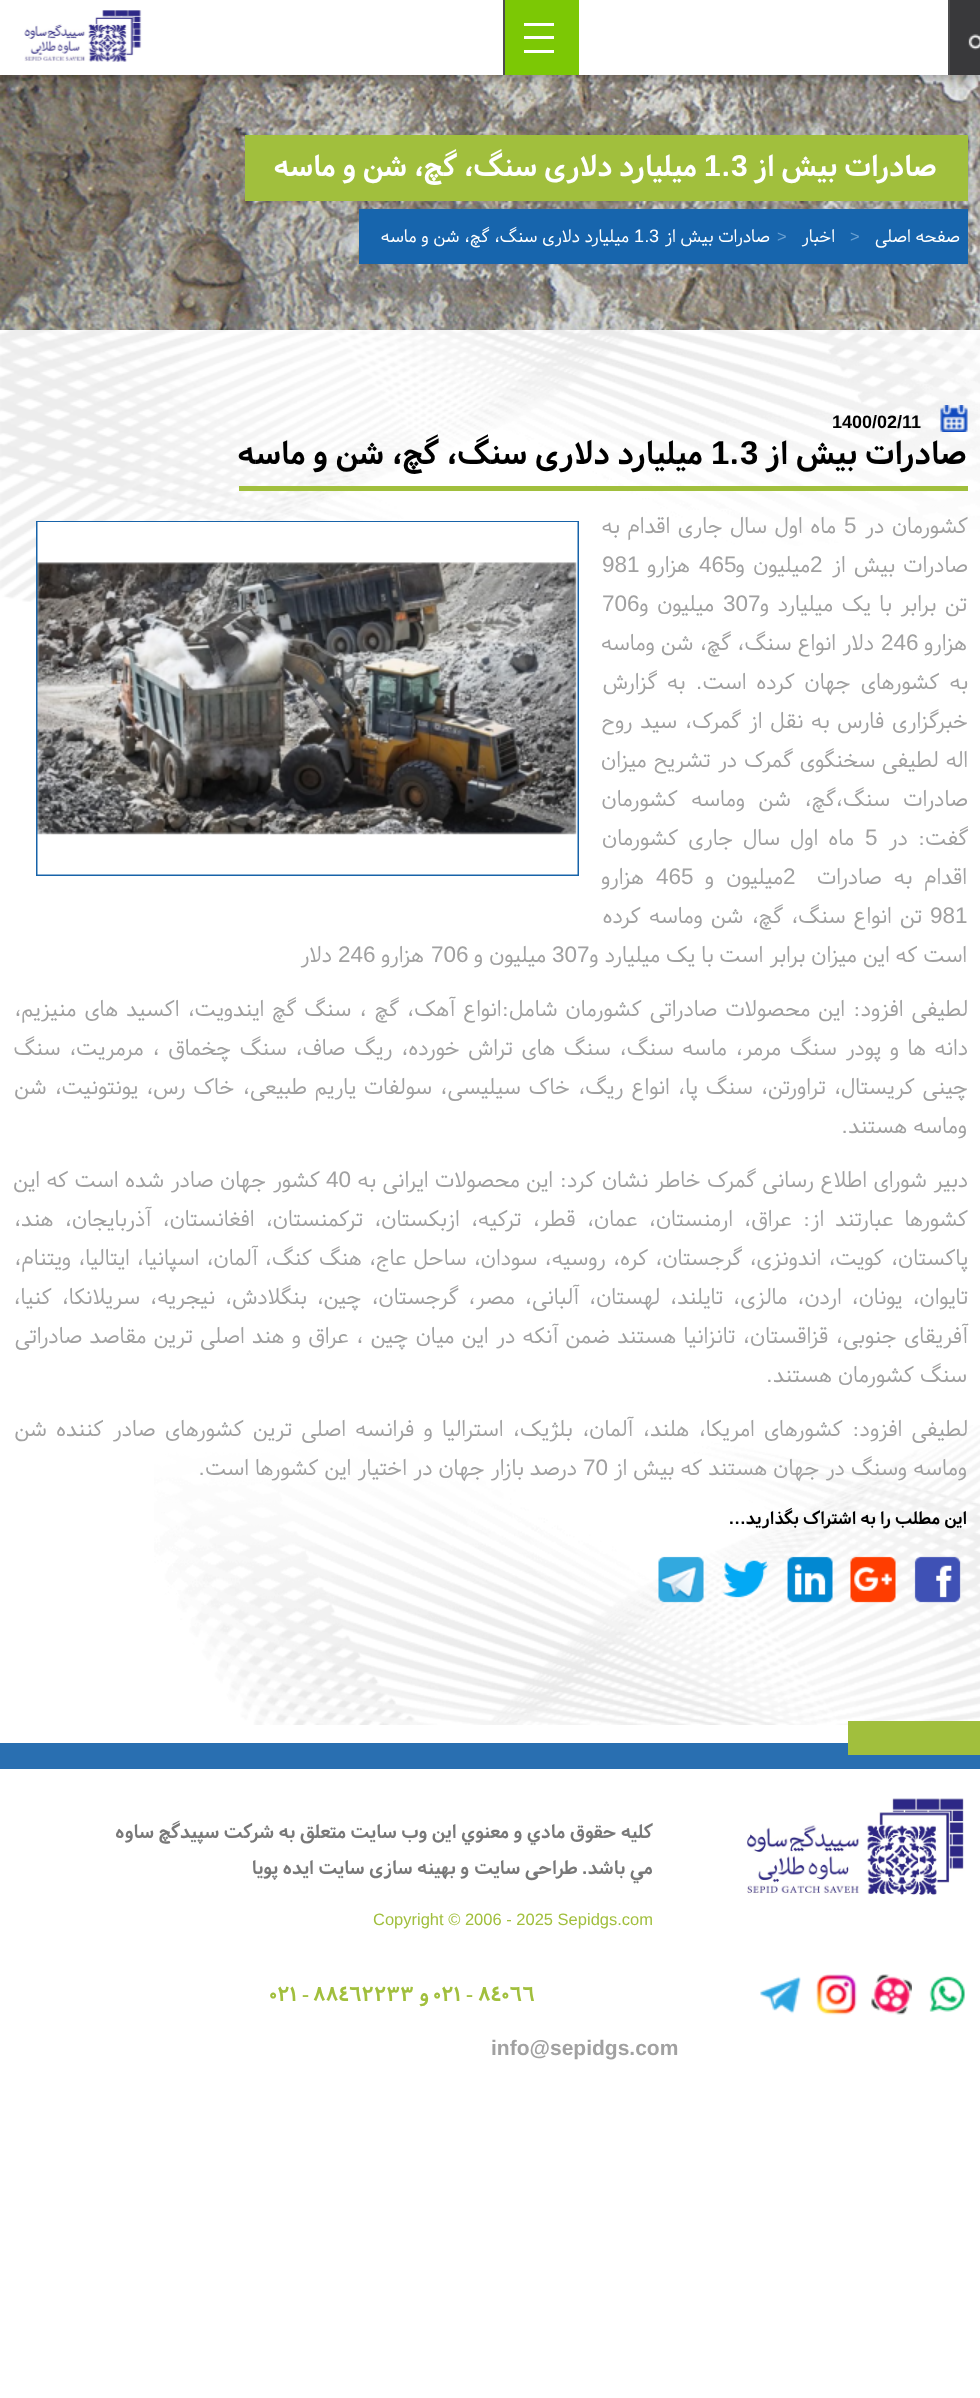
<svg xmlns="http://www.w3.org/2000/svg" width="980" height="2398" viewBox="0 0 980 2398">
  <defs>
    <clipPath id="clip1"><rect x="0" y="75" width="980" height="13"/></clipPath>
  </defs>
  <rect width="100%" height="100%" fill="rgb(255,255,255)"/>
  <image x="0" y="75" width="980" height="255" href="pic3.png"/>
  <g clip-path="url(#clip1)">
    <rect x="-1" y="-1" width="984" height="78" fill="rgba(0,0,0,0.35)" filter="blur(7px)"/>
  </g>
  <rect x="950" y="0" width="30" height="75" fill="rgb(57,57,59)"/>
  <image x="968" y="34" width="12" height="16" href="pic1.png"/>
  <rect x="948" y="0" width="2" height="75" fill="rgb(77,77,79)"/>
  <rect x="505" y="0" width="74" height="75" fill="rgb(124,200,5)"/>
  <rect x="503" y="0" width="2" height="75" fill="rgb(77,77,79)"/>
  <rect x="524" y="23" width="30" height="30" fill="rgb(255,255,255)"/>
  <rect x="524" y="26" width="30" height="10" fill="rgb(124,200,5)"/>
  <rect x="524" y="39" width="30" height="11" fill="rgb(124,200,5)"/>
  <image x="24" y="10" width="118" height="52" href="pic2.png"/>
  <rect x="245" y="135" width="723" height="66" fill="rgb(161,191,61)"/>
  <text x="937" y="176" font-family="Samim" font-size="30" font-weight="bold" direction="rtl" fill="rgb(255,255,255)">صادرات بیش از</text>
  <text x="731" y="176" font-family="Liberation Sans" font-size="30" font-weight="bold" fill="rgb(255,255,255)">3</text>
  <text x="721" y="176" font-family="Samim" font-size="30" font-weight="bold" fill="rgb(255,255,255)">.</text>
  <text x="704" y="176" font-family="Liberation Sans" font-size="30" font-weight="bold" fill="rgb(255,255,255)">1</text>
  <text x="697" y="176" font-family="Samim" font-size="30" font-weight="bold" direction="rtl" fill="rgb(255,255,255)">میلیارد دلاری سنگ، گچ، شن و ماسه</text>
  <rect x="359" y="209" width="609" height="55" fill="rgb(23,101,173)"/>
  <text x="960" y="242" font-family="Samim" font-size="18" direction="rtl" fill="rgb(255,255,255)">صفحه اصلی</text>
  <text x="850" y="242" font-family="Liberation Sans" font-size="16.5" fill="rgb(107,161,210)">&gt;</text>
  <text x="835" y="242" font-family="Samim" font-size="18" direction="rtl" fill="rgb(255,255,255)">اخبار</text>
  <text x="777" y="242" font-family="Liberation Sans" font-size="16.5" fill="rgb(107,161,210)">&gt;</text>
  <text x="770" y="242" font-family="Samim" font-size="18" direction="rtl" fill="rgb(255,255,255)">صادرات بیش از</text>
  <text x="649" y="242" font-family="Liberation Sans" font-size="18" fill="rgb(255,255,255)">3</text>
  <text x="644" y="242" font-family="Samim" font-size="18" fill="rgb(255,255,255)">.</text>
  <text x="634" y="242" font-family="Liberation Sans" font-size="18" fill="rgb(255,255,255)">1</text>
  <text x="629" y="242" font-family="Samim" font-size="18" direction="rtl" fill="rgb(255,255,255)">میلیارد دلاری سنگ، گچ، شن و ماسه</text>
  <image x="0" y="330" width="980" height="274" href="pic4.png"/>
  <image x="940" y="405" width="28" height="27" href="pic5.png"/>
  <text x="832" y="428" font-family="Liberation Sans" font-size="18" font-weight="bold" fill="rgb(0,0,0)">1400/02/11</text>
  <rect x="239" y="486" width="729" height="5" fill="rgb(161,191,61)"/>
  <text x="967" y="464" font-family="Samim" font-size="33" font-weight="bold" direction="rtl" fill="rgb(0,0,0)">صادرات بیش از</text>
  <text x="740" y="464" font-family="Liberation Sans" font-size="33" font-weight="bold" fill="rgb(0,0,0)">3</text>
  <text x="729" y="464" font-family="Samim" font-size="33" font-weight="bold" fill="rgb(0,0,0)">.</text>
  <text x="711" y="464" font-family="Liberation Sans" font-size="33" font-weight="bold" fill="rgb(0,0,0)">1</text>
  <text x="703" y="464" font-family="Samim" font-size="33" font-weight="bold" direction="rtl" fill="rgb(0,0,0)">میلیارد دلاری سنگ، گچ، شن و ماسه</text>
  <text x="968" y="533" word-spacing="1.5" font-family="Samim" font-size="22.5" direction="rtl" fill="rgb(161,161,161)">کشورمان در</text>
  <text x="844" y="533" font-family="Liberation Sans" font-size="22.5" fill="rgb(161,161,161)">5</text>
  <g font-family="Samim" font-size="22.5" direction="rtl" fill="rgb(161,161,161)">
    <text x="836" y="533" word-spacing="1.5">ماه اول سال جاری اقدام به</text>
    <text x="968" y="572" word-spacing="2.25">صادرات بیش از</text>
  </g>
  <text x="810" y="572" font-family="Liberation Sans" font-size="22.5" fill="rgb(161,161,161)">2</text>
  <text x="810" y="572" word-spacing="2.25" font-family="Samim" font-size="22.5" direction="rtl" fill="rgb(161,161,161)">میلیون و</text>
  <text x="699" y="572" font-family="Liberation Sans" font-size="22.5" fill="rgb(161,161,161)">465</text>
  <text x="690" y="572" font-family="Samim" font-size="22.5" direction="rtl" fill="rgb(161,161,161)">هزارو</text>
  <text x="602" y="572" font-family="Liberation Sans" font-size="22.5" fill="rgb(161,161,161)">981</text>
  <text x="967" y="611" word-spacing="2.6" font-family="Samim" font-size="22.5" direction="rtl" fill="rgb(161,161,161)">تن برابر با یک میلیارد و</text>
  <text x="723" y="611" font-family="Liberation Sans" font-size="22.5" fill="rgb(161,161,161)">307</text>
  <text x="714" y="611" word-spacing="2.6" font-family="Samim" font-size="22.5" direction="rtl" fill="rgb(161,161,161)">میلیون و</text>
  <text x="602" y="611" font-family="Liberation Sans" font-size="22.5" fill="rgb(161,161,161)">706</text>
  <text x="967" y="650" font-family="Samim" font-size="22.5" direction="rtl" fill="rgb(161,161,161)">هزارو</text>
  <text x="881" y="650" font-family="Liberation Sans" font-size="22.5" fill="rgb(161,161,161)">246</text>
  <g font-family="Samim" font-size="22.5" direction="rtl" fill="rgb(161,161,161)">
    <text x="874" y="650" word-spacing="0.25">دلار انواع سنگ، گچ، شن وماسه</text>
    <text>
      <tspan x="968" y="689" word-spacing="4">به کشورهای جهان کرده است. به گزارش</tspan>
      <tspan x="968" y="728" word-spacing="1.75">خبرگزاری فارس به نقل از گمرک، سید روح</tspan>
      <tspan x="968" y="767" word-spacing="1">اله لطیفی سخنگوی گمرک در تشریح میزان</tspan>
      <tspan x="968" y="806" word-spacing="7.5">صادرات سنگ،گچ، شن وماسه کشورمان</tspan>
      <tspan x="968" y="845" word-spacing="4">گفت: در</tspan>
    </text>
  </g>
  <text x="865" y="845" font-family="Liberation Sans" font-size="22.5" fill="rgb(161,161,161)">5</text>
  <g font-family="Samim" font-size="22.5" direction="rtl" fill="rgb(161,161,161)">
    <text x="854" y="845" word-spacing="4">ماه اول سال جاری کشورمان</text>
    <text x="967" y="884" word-spacing="6">اقدام به صادرات</text>
  </g>
  <text x="783" y="884" font-family="Liberation Sans" font-size="22.5" fill="rgb(161,161,161)">2</text>
  <text x="783" y="884" word-spacing="6" font-family="Samim" font-size="22.5" direction="rtl" fill="rgb(161,161,161)">میلیون و</text>
  <text x="656" y="884" font-family="Liberation Sans" font-size="22.5" fill="rgb(161,161,161)">465</text>
  <text x="644" y="884" font-family="Samim" font-size="22.5" direction="rtl" fill="rgb(161,161,161)">هزارو</text>
  <text x="930" y="923" font-family="Liberation Sans" font-size="22.5" fill="rgb(161,161,161)">981</text>
  <g font-family="Samim" font-size="22.5" direction="rtl" fill="rgb(161,161,161)">
    <text x="922" y="923" word-spacing="2.25">تن انواع سنگ، گچ، شن وماسه کرده</text>
    <text x="967" y="962">است که این میزان برابر است با یک میلیارد و</text>
  </g>
  <text x="552" y="962" font-family="Liberation Sans" font-size="22.5" fill="rgb(161,161,161)">307</text>
  <text x="546" y="962" font-family="Samim" font-size="22.5" direction="rtl" fill="rgb(161,161,161)">میلیون و</text>
  <text x="431" y="962" font-family="Liberation Sans" font-size="22.5" fill="rgb(161,161,161)">706</text>
  <text x="424" y="962" font-family="Samim" font-size="22.5" direction="rtl" fill="rgb(161,161,161)">هزارو</text>
  <text x="338" y="962" font-family="Liberation Sans" font-size="22.5" fill="rgb(161,161,161)">246</text>
  <text x="332" y="962" font-family="Samim" font-size="22.5" direction="rtl" fill="rgb(161,161,161)">دلار</text>
  <rect x="37" y="522" width="541" height="353" fill="none" stroke="rgb(23,99,169)" stroke-width="2"/>
  <image x="37" y="522" width="541" height="353" href="pic6.png"/>
  <g font-family="Samim" font-size="22.5" direction="rtl" fill="rgb(161,161,161)">
    <text>
      <tspan x="968" y="1016" word-spacing="2.1">لطیفی افزود: این محصولات صادراتی کشورمان شامل:انواع آهک، گچ ، سنگ گچ ایندویت، اکسید های منیزیم،</tspan>
      <tspan x="968" y="1055" word-spacing="2.6">دانه ها و پودر سنگ مرمر، ماسه سنگ، سنگ های تراش خورده، ریگ صاف، سنگ چخماق ، مرمریت، سنگ</tspan>
      <tspan x="968" y="1094" word-spacing="2">چینی کریستال، تراورتن، سنگ پا، انواع ریگ، خاک سیلیسی، سولفات یاریم طبیعی، خاک رس، یونتونیت، شن</tspan>
    </text>
    <text x="967" y="1133">وماسه هستند.</text>
    <text x="968" y="1187" word-spacing="0.5">دبیر شورای اطلاع رسانی گمرک خاطر نشان کرد: این محصولات ایرانی به</text>
  </g>
  <text x="326" y="1187" font-family="Liberation Sans" font-size="22.5" fill="rgb(161,161,161)">40</text>
  <g font-family="Samim" font-size="22.5" direction="rtl" fill="rgb(161,161,161)">
    <text x="320" y="1187" word-spacing="0.5">کشور جهان صادر شده است که این</text>
    <text>
      <tspan x="968" y="1226" word-spacing="5">کشورها عبارتند از: عراق، ارمنستان، عمان، قطر، ترکیه، ازبکستان، ترکمنستان، افغانستان، آذربایجان، هند،</tspan>
      <tspan x="968" y="1265" word-spacing="1">پاکستان، کویت، اندونزی، گرجستان، کره، روسیه، سودان، ساحل عاج، هنگ کنگ، آلمان، اسپانیا، ایتالیا، ویتنام،</tspan>
      <tspan x="968" y="1304" word-spacing="3.75">تایوان، یونان، اردن، مالزی، تایلند، لهستان، آلبانی، مصر، گرجستان، چین، بنگلادش، نیجریه، سریلانکا، کنیا،</tspan>
      <tspan x="968" y="1343" word-spacing="1.3">آفریقای جنوبی، قزاقستان، تانزانیا هستند ضمن آنکه در این میان چین ، عراق و هند اصلی ترین مقاصد صادراتی</tspan>
    </text>
    <text x="967" y="1382">سنگ کشورمان هستند.</text>
  </g>
  <image x="154" y="1425" width="826" height="300" href="pic12.png"/>
  <g font-family="Samim" font-size="22.5" direction="rtl" fill="rgb(161,161,161)">
    <text x="968" y="1436" word-spacing="3.25">لطیفی افزود: کشورهای امریکا، هلند، آلمان، بلژیک، استرالیا و فرانسه اصلی ترین کشورهای صادر کننده شن</text>
    <text x="967" y="1475">وماسه وسنگ در جهان هستند که بیش از</text>
  </g>
  <text x="583" y="1475" font-family="Liberation Sans" font-size="22.5" fill="rgb(161,161,161)">70</text>
  <text x="577" y="1475" font-family="Samim" font-size="22.5" direction="rtl" fill="rgb(161,161,161)">درصد بازار جهان در اختیار این کشورها است.</text>
  <text x="967" y="1524" font-family="Samim" font-size="18" font-weight="bold" direction="rtl" fill="rgb(0,0,0)">این مطلب را به اشتراک بگذارید...</text>
  <image x="914" y="1556" width="47" height="47" href="pic7.png"/>
  <image x="850" y="1556" width="46" height="47" href="pic8.png"/>
  <image x="787" y="1556" width="46" height="47" href="pic9.png"/>
  <image x="723" y="1560" width="46" height="38" href="pic10.png"/>
  <image x="658" y="1556" width="46" height="47" href="pic11.png"/>
  <rect x="0" y="1743" width="980" height="26" fill="rgb(41,111,177)"/>
  <rect x="848" y="1721" width="132" height="34" fill="rgb(161,191,61)"/>
  <image x="746" y="1798" width="219" height="97" href="pic13.png"/>
  <g font-family="Samim" font-size="19.5" font-weight="bold" direction="rtl" fill="rgb(121,121,121)">
    <text>
      <tspan x="653" y="1838">كليه حقوق مادي و معنوي اين وب سايت متعلق به شرکت سپیدگچ ساوه</tspan>
      <tspan x="653" y="1874">مي باشد.</tspan>
    </text>
    <text x="578" y="1874">طراحی سایت</text>
    <text x="469" y="1874">و</text>
    <text x="456" y="1874">بهینه سازی سایت</text>
    <text x="314" y="1874">ایده پویا</text>
  </g>
  <text x="373" y="1925" font-family="Liberation Sans" font-size="16.5" fill="rgb(161,191,61)">Copyright © 2006 - 2025 Sepidgs.com</text>
  <image x="929" y="1976" width="36" height="36" href="pic14.png"/>
  <image x="871" y="1974" width="41" height="41" href="pic15.png"/>
  <image x="816" y="1974" width="41" height="41" href="pic16.png"/>
  <image x="760" y="1976" width="41" height="38" href="pic17.png"/>
  <text x="478" y="2001" font-family="Samim" font-size="21" font-weight="bold" fill="rgb(161,191,61)">٨٤٠٦٦</text>
  <text x="466" y="2001" font-family="Liberation Serif" font-size="21" font-weight="bold" fill="rgb(161,191,61)">-</text>
  <text x="433" y="2001" font-family="Samim" font-size="21" font-weight="bold" fill="rgb(161,191,61)">٠٢١</text>
  <text x="429" y="2001" font-family="Samim" font-size="21" font-weight="bold" direction="rtl" fill="rgb(161,191,61)">و</text>
  <text x="313" y="2001" font-family="Samim" font-size="21" font-weight="bold" fill="rgb(161,191,61)">٨٨٤٦٢٢٣٣</text>
  <text x="302" y="2001" font-family="Liberation Serif" font-size="21" font-weight="bold" fill="rgb(161,191,61)">-</text>
  <text x="269" y="2001" font-family="Samim" font-size="21" font-weight="bold" fill="rgb(161,191,61)">٠٢١</text>
  <text x="491" y="2055" font-family="Liberation Sans" font-size="21" font-weight="bold" fill="rgb(161,161,161)">info@sepidgs.com</text>
</svg>
